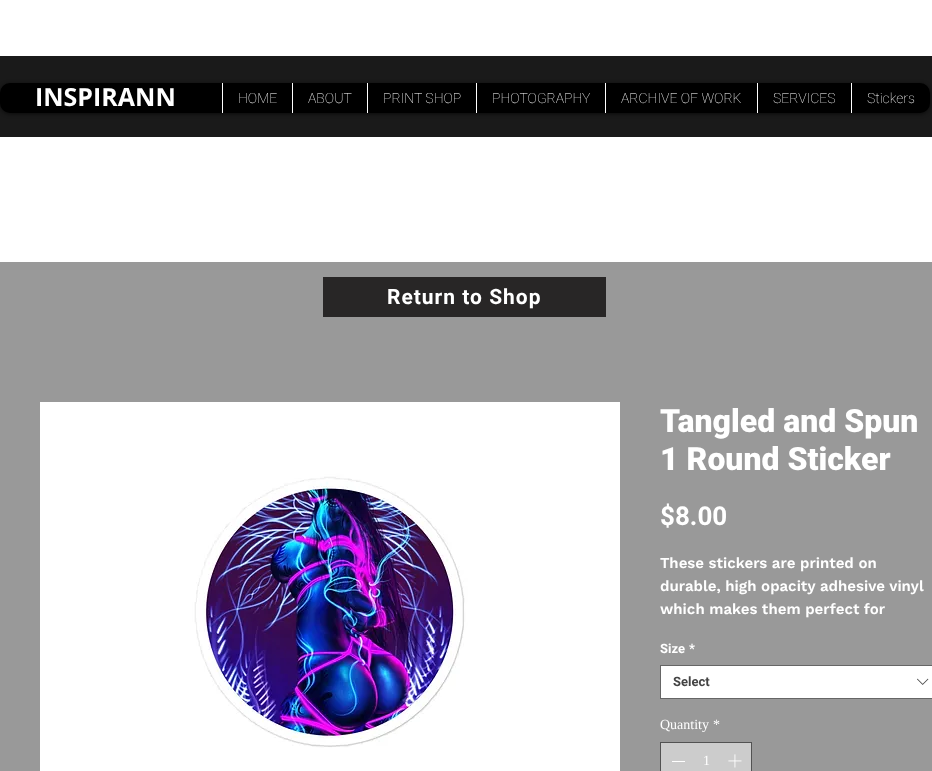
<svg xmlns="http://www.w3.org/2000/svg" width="932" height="771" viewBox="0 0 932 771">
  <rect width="100%" height="100%" fill="rgb(255,255,255)"/>
  <rect x="0" y="56" width="932" height="81" fill="rgb(26,26,26)"/>
  <rect x="0" y="84" width="930" height="30" rx="10" fill="rgba(0,0,0,0.6)" filter="blur(2px)"/>
  <rect x="0" y="83" width="930" height="30" rx="10" fill="rgb(0,0,0)"/>
  <text x="35" y="106" font-family="Open Sans" font-size="25" font-weight="bold" fill="rgb(255,255,255)">INSPIRANN</text>
  <rect x="222" y="83" width="1" height="30" fill="rgb(255,255,255)"/>
  <text x="238" y="103" font-family="Roboto" font-size="14" font-weight="100" fill="rgb(255,255,255)">HOME</text>
  <rect x="292" y="83" width="1" height="30" fill="rgb(255,255,255)"/>
  <text x="308" y="103" font-family="Roboto" font-size="14" font-weight="100" fill="rgb(255,255,255)">ABOUT</text>
  <rect x="367" y="83" width="1" height="30" fill="rgb(255,255,255)"/>
  <text x="383" y="103" font-family="Roboto" font-size="14" font-weight="100" fill="rgb(255,255,255)">PRINT SHOP</text>
  <rect x="476" y="83" width="1" height="30" fill="rgb(255,255,255)"/>
  <text x="492" y="103" font-family="Roboto" font-size="14" font-weight="100" fill="rgb(255,255,255)">PHOTOGRAPHY</text>
  <rect x="605" y="83" width="1" height="30" fill="rgb(255,255,255)"/>
  <text x="621" y="103" font-family="Roboto" font-size="14" font-weight="100" fill="rgb(255,255,255)">ARCHIVE OF WORK</text>
  <rect x="757" y="83" width="1" height="30" fill="rgb(255,255,255)"/>
  <text x="773" y="103" font-family="Roboto" font-size="14" font-weight="100" fill="rgb(255,255,255)">SERVICES</text>
  <rect x="851" y="83" width="1" height="30" fill="rgb(255,255,255)"/>
  <text x="867" y="103" font-family="Roboto" font-size="14" font-weight="100" fill="rgb(255,255,255)">Stickers</text>
  <rect x="0" y="262" width="932" height="509" fill="rgb(153,153,153)"/>
  <rect x="323" y="277" width="283" height="40" fill="rgb(40,38,38)"/>
  <text x="387" y="304" font-family="Roboto" font-size="21" font-weight="bold" letter-spacing="1" fill="rgb(255,255,255)">Return to Shop</text>
  <image x="40" y="402" width="580" height="369" href="pic1.png"/>
  <g font-family="Roboto" font-size="32" font-weight="900" fill="rgb(255,255,255)">
    <text>
      <tspan x="660" y="432">Tangled and Spun</tspan>
      <tspan x="660" y="470">1 Round Sticker</tspan>
    </text>
  </g>
  <text x="660" y="525" font-family="Roboto" font-size="26" font-weight="bold" fill="rgb(255,255,255)">$8.00</text>
  <g font-family="Work Sans" font-size="15" font-weight="600" fill="rgb(255,255,255)">
    <text>
      <tspan x="660" y="568">These stickers are printed on</tspan>
      <tspan x="660" y="591">durable, high opacity adhesive vinyl</tspan>
      <tspan x="660" y="614">which makes them perfect for</tspan>
    </text>
  </g>
  <g font-family="Roboto" font-size="13" font-weight="bold" fill="rgb(255,255,255)">
    <text x="660" y="653">Size</text>
    <text x="689" y="653">*</text>
  </g>
  <rect x="660.5" y="665.5" width="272" height="33" fill="rgb(255,255,255)" stroke="rgb(102,102,102)"/>
  <text x="673" y="686" font-family="Roboto" font-size="13" font-weight="bold" fill="rgb(68,68,68)">Select</text>
  <image x="917" y="678" width="12" height="7" href="pic2.png"/>
  <g font-family="Liberation Serif" font-size="14" fill="rgb(255,255,255)">
    <text x="660" y="729">Quantity</text>
    <text x="713" y="729">*</text>
  </g>
  <rect x="660.5" y="742.5" width="91" height="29" fill="rgb(204,204,204)" stroke="rgb(82,82,82)"/>
  <rect x="672" y="761" width="13" height="1" fill="rgb(255,255,255)"/>
  <text x="703" y="765" font-family="Liberation Serif" font-size="14" fill="rgb(255,255,255)">1</text>
  <image x="728" y="754" width="14" height="14" href="pic3.png"/>
</svg>
